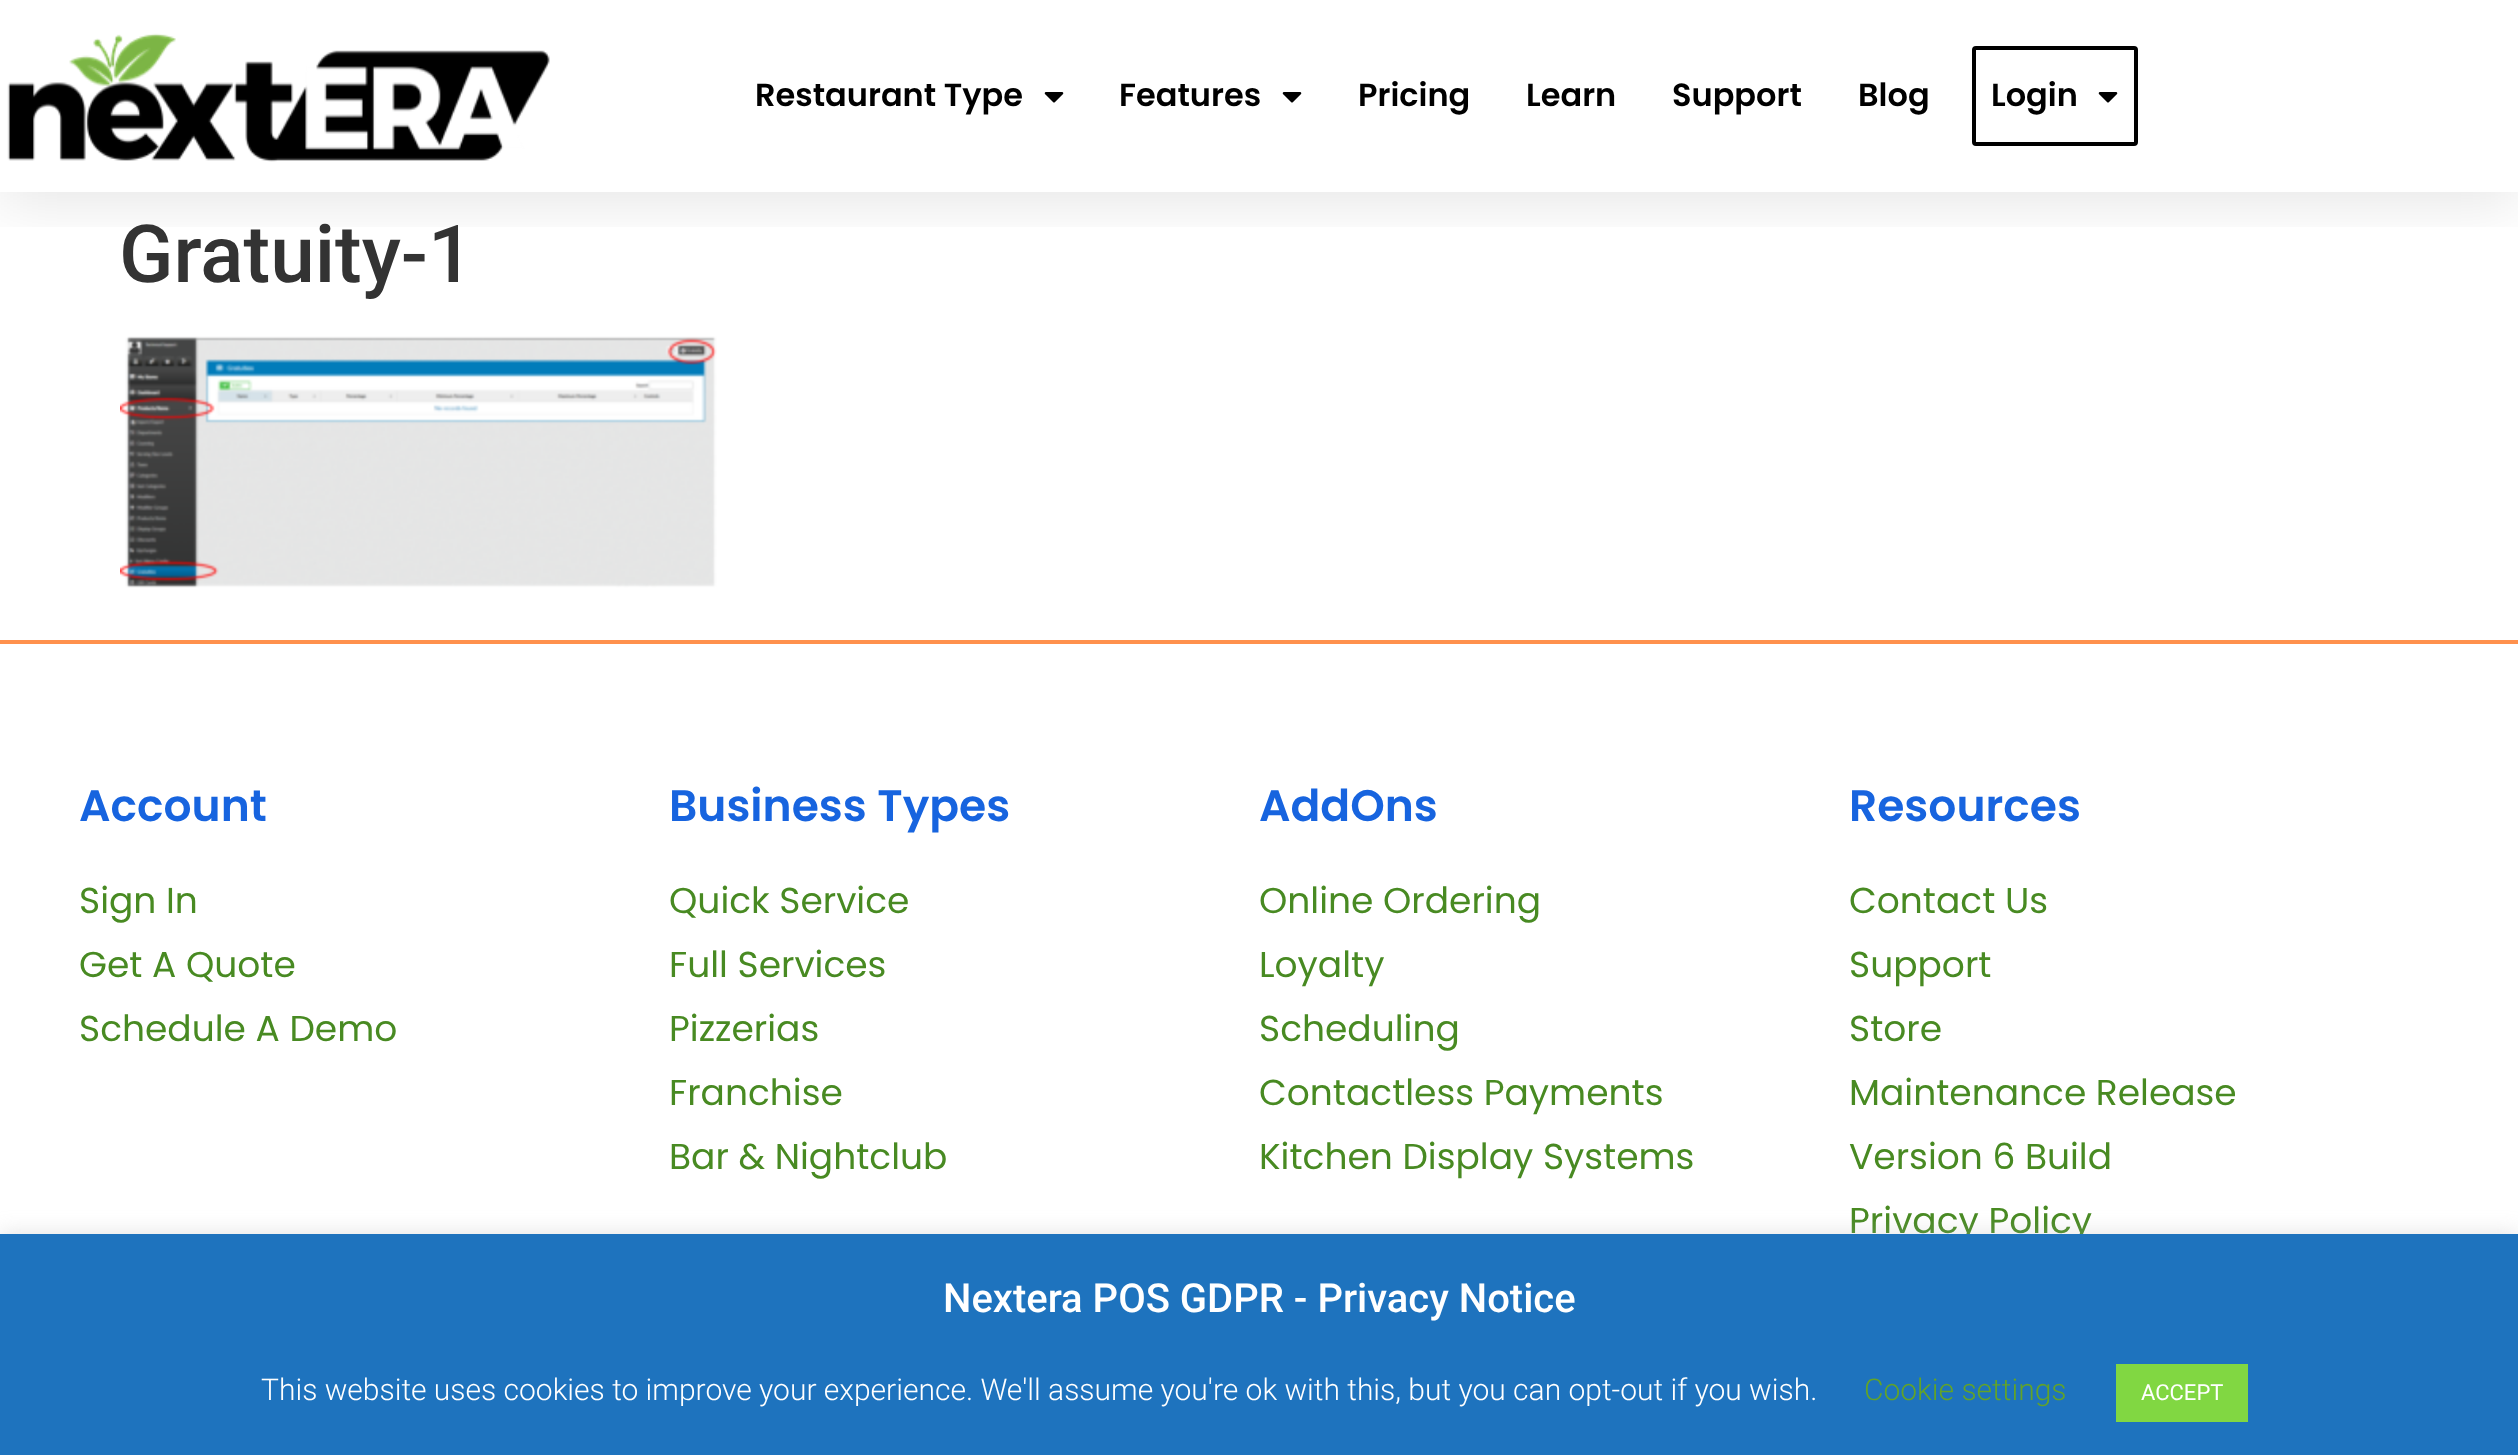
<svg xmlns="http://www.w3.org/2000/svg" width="2518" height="1455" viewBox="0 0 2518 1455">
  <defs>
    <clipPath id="clip1"><rect x="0" y="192" width="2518" height="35"/></clipPath>
  </defs>
  <rect width="100%" height="100%" fill="rgb(255,255,255)"/>
  <g clip-path="url(#clip1)">
    <rect x="0" y="10" width="2518" height="192" fill="rgba(0,0,0,0.1)" filter="blur(30px)"/>
  </g>
  <image x="7" y="33" width="543" height="129" href="pic1.png"/>
  <text x="755" y="106" font-family="Poppins" font-size="32" font-weight="600" fill="rgb(0,0,0)">Restaurant Type</text>
  <image x="1044" y="92" width="20" height="11" href="pic2.png"/>
  <text x="1119" y="106" font-family="Poppins" font-size="32" font-weight="600" fill="rgb(0,0,0)">Features</text>
  <image x="1282" y="92" width="20" height="11" href="pic2.png"/>
  <g font-family="Poppins" font-size="32" font-weight="600" fill="rgb(0,0,0)">
    <text x="1358" y="106">Pricing</text>
    <text x="1526" y="106">Learn</text>
    <text x="1672" y="106">Support</text>
    <text x="1858" y="106">Blog</text>
  </g>
  <rect x="1974" y="48" width="162" height="96" rx="2" fill="none" stroke="rgb(0,0,0)" stroke-width="4"/>
  <text x="1991" y="106" font-family="Poppins" font-size="32" font-weight="600" fill="rgb(0,0,0)">Login</text>
  <image x="2098" y="92" width="20" height="11" href="pic2.png"/>
  <text x="119" y="282" font-family="Roboto" font-size="80" font-weight="500" fill="rgb(51,51,51)">Gratuity-1</text>
  <image x="120" y="336" width="597" height="252" href="pic3.png"/>
  <rect x="0" y="640" width="2518" height="4" fill="rgb(255,145,77)"/>
  <text x="79" y="821" font-family="Poppins" font-size="44" font-weight="600" fill="rgb(23,100,223)">Account</text>
  <g font-family="Poppins" font-size="36" fill="rgb(72,138,34)">
    <text>
      <tspan x="79" y="913">Sign In</tspan>
      <tspan x="79" y="977">Get A Quote</tspan>
      <tspan x="79" y="1041">Schedule A Demo</tspan>
    </text>
  </g>
  <text x="669" y="821" font-family="Poppins" font-size="44" font-weight="600" fill="rgb(23,100,223)">Business Types</text>
  <g font-family="Poppins" font-size="36" fill="rgb(72,138,34)">
    <text>
      <tspan x="669" y="913">Quick Service</tspan>
      <tspan x="669" y="977">Full Services</tspan>
      <tspan x="669" y="1041">Pizzerias</tspan>
      <tspan x="669" y="1105">Franchise</tspan>
      <tspan x="669" y="1169">Bar &amp; Nightclub</tspan>
    </text>
  </g>
  <text x="1259" y="821" font-family="Poppins" font-size="44" font-weight="600" fill="rgb(23,100,223)">AddOns</text>
  <g font-family="Poppins" font-size="36" fill="rgb(72,138,34)">
    <text>
      <tspan x="1259" y="913">Online Ordering</tspan>
      <tspan x="1259" y="977">Loyalty</tspan>
      <tspan x="1259" y="1041">Scheduling</tspan>
      <tspan x="1259" y="1105">Contactless Payments</tspan>
      <tspan x="1259" y="1169">Kitchen Display Systems</tspan>
    </text>
  </g>
  <text x="1849" y="821" font-family="Poppins" font-size="44" font-weight="600" fill="rgb(23,100,223)">Resources</text>
  <g font-family="Poppins" font-size="36" fill="rgb(72,138,34)">
    <text>
      <tspan x="1849" y="913">Contact Us</tspan>
      <tspan x="1849" y="977">Support</tspan>
      <tspan x="1849" y="1041">Store</tspan>
      <tspan x="1849" y="1105">Maintenance Release</tspan>
      <tspan x="1849" y="1169">Version 6 Build</tspan>
      <tspan x="1849" y="1233">Privacy Policy</tspan>
    </text>
  </g>
  <rect x="0" y="1232" width="2518" height="222" fill="rgba(172,171,171,0.3)" filter="blur(10px)"/>
  <rect x="0" y="1234" width="2518" height="221" fill="rgb(30,115,190)"/>
  <text x="943" y="1312" font-family="Roboto" font-size="40" font-weight="500" fill="rgb(255,255,255)">Nextera POS GDPR - Privacy Notice</text>
  <text x="261" y="1400" font-family="Roboto" font-size="30" font-weight="300" fill="rgb(255,255,255)">This website uses cookies to improve your experience. We'll assume you're ok with this, but you can opt-out if you wish.</text>
  <text x="1864" y="1400" font-family="Roboto" font-size="30" font-weight="300" fill="rgb(98,163,41)">Cookie settings</text>
  <rect x="2116" y="1364" width="132" height="58" fill="rgb(129,215,66)"/>
  <text x="2141" y="1400" font-family="Roboto" font-size="22" fill="rgb(255,255,255)">ACCEPT</text>
</svg>
